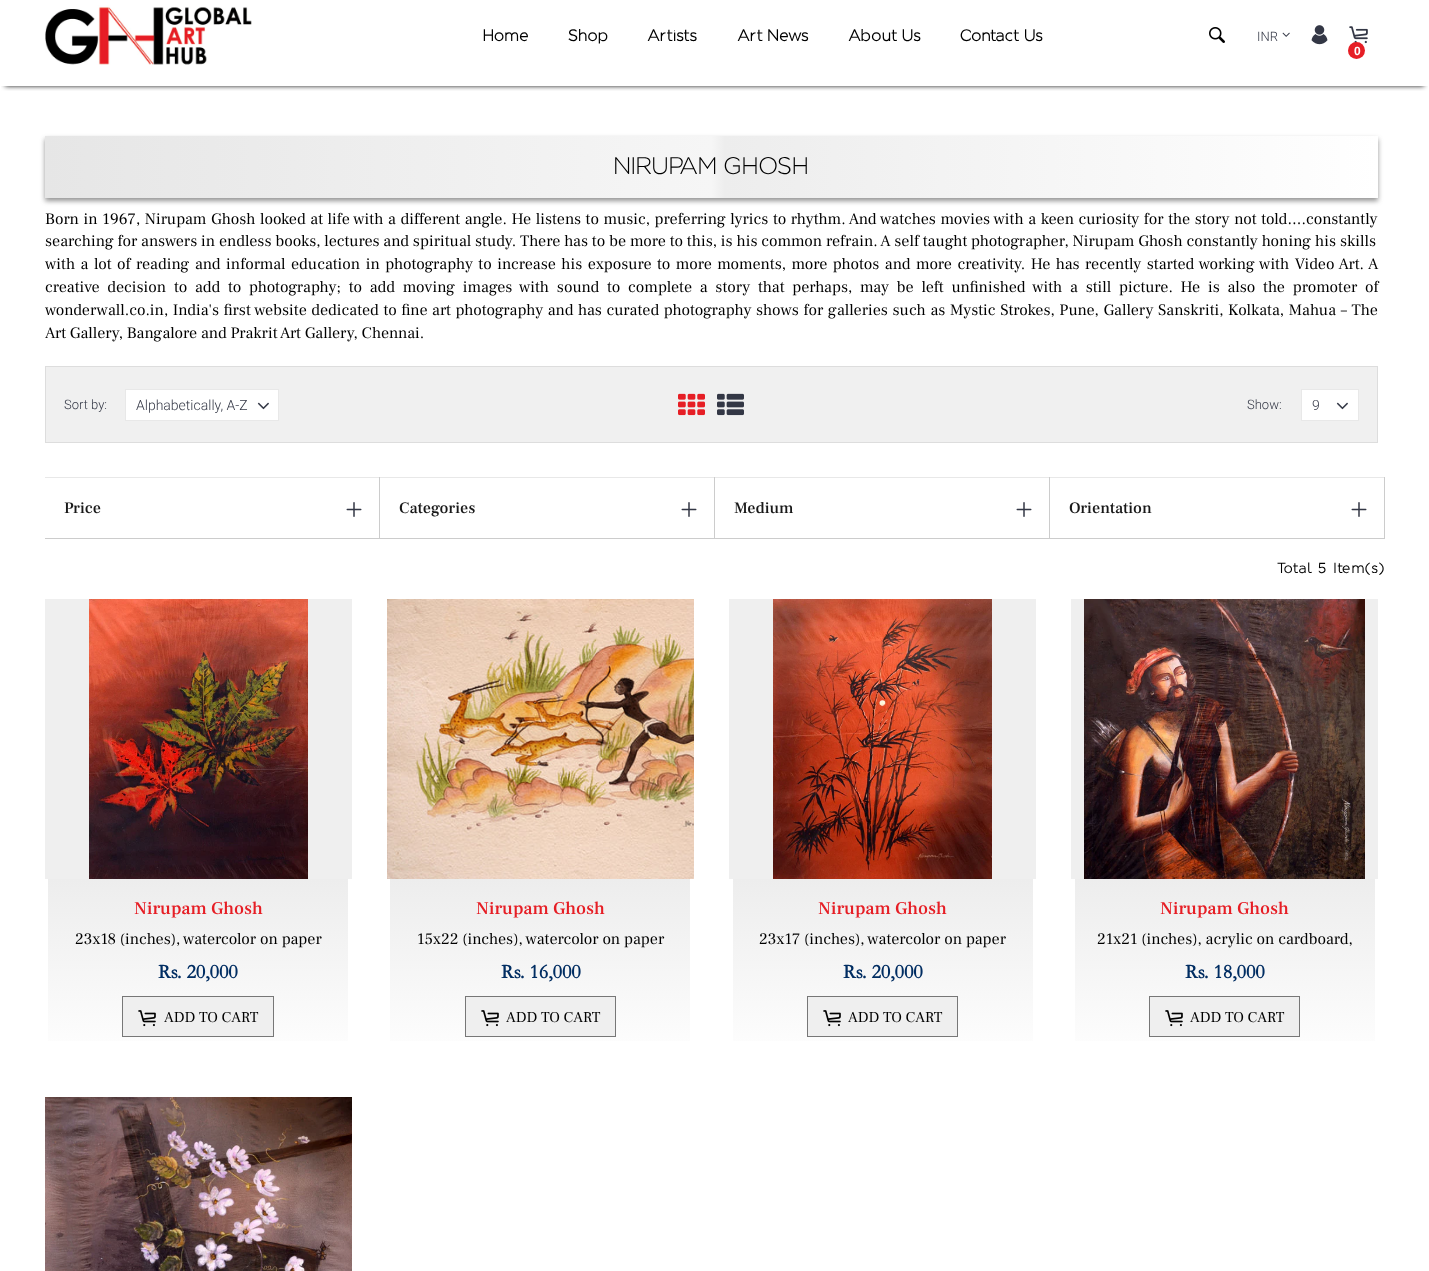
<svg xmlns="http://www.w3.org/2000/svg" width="1429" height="1271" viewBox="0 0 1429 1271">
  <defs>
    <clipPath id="clip1"><rect x="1" y="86" width="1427" height="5"/></clipPath>
    <linearGradient id="g1" gradientUnits="userSpaceOnUse" x1="45" y1="167" x2="1378" y2="167"><stop offset="0" stop-color="rgb(230,230,230)"/><stop offset="0.5" stop-color="rgb(246,246,246)"/><stop offset="0.51" stop-color="rgb(237,237,237)"/><stop offset="1" stop-color="rgb(255,255,255)"/></linearGradient>
    <linearGradient id="g2" gradientUnits="userSpaceOnUse" x1="198" y1="879" x2="198" y2="1067"><stop offset="0" stop-color="rgb(237,237,237)"/><stop offset="1" stop-color="rgb(255,255,255)"/></linearGradient>
    <linearGradient id="g3" gradientUnits="userSpaceOnUse" x1="540" y1="879" x2="540" y2="1067"><stop offset="0" stop-color="rgb(237,237,237)"/><stop offset="1" stop-color="rgb(255,255,255)"/></linearGradient>
    <linearGradient id="g4" gradientUnits="userSpaceOnUse" x1="883" y1="879" x2="883" y2="1067"><stop offset="0" stop-color="rgb(237,237,237)"/><stop offset="1" stop-color="rgb(255,255,255)"/></linearGradient>
    <linearGradient id="g5" gradientUnits="userSpaceOnUse" x1="1225" y1="879" x2="1225" y2="1067"><stop offset="0" stop-color="rgb(237,237,237)"/><stop offset="1" stop-color="rgb(255,255,255)"/></linearGradient>
  </defs>
  <rect width="100%" height="100%" fill="rgb(255,255,255)"/>
  <g clip-path="url(#clip1)">
    <rect x="5" y="10" width="1419" height="76" fill="rgba(0,0,0,0.9)" filter="blur(2.5px)"/>
  </g>
  <image x="45" y="5" width="207" height="60" href="pic1.png"/>
  <g font-family="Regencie" font-size="16" font-weight="bold" fill="rgb(0,0,0)">
    <text x="483" y="41">Home</text>
    <text x="568" y="41">Shop</text>
    <text x="647" y="41">Artists</text>
    <text x="737" y="41">Art News</text>
    <text x="848" y="41">About Us</text>
    <text x="960" y="41">Contact Us</text>
  </g>
  <image x="1209" y="27" width="16" height="16" href="pic2.png"/>
  <text x="1257" y="41" font-family="Roboto" font-size="13" font-weight="300" fill="rgb(51,55,69)">INR</text>
  <image x="1282" y="32" width="8" height="5" href="pic3.png"/>
  <image x="1311" y="25" width="17" height="20" href="pic4.png"/>
  <image x="1349" y="26" width="19" height="18" href="pic5.png"/>
  <circle cx="1356.5" cy="50.5" r="8.5" fill="rgb(230,30,37)"/>
  <text x="1354" y="55" font-family="Liberation Sans" font-size="12" font-weight="bold" fill="rgb(255,255,255)">0</text>
  <rect x="45" y="139" width="1333" height="62" fill="rgba(50,50,50,0.52)" filter="blur(2.5px)"/>
  <rect x="45" y="136" width="1333" height="62" fill="url(#g1)"/>
  <text x="614" y="174" font-family="Regencie" font-size="24" font-weight="300" fill="rgb(0,0,0)">NIRUPAM GHOSH</text>
  <g font-family="Frank Ruhl Libre" font-size="16" fill="rgb(0,0,0)">
    <text>
      <tspan x="45" y="224" word-spacing="0.75">Born in 1967, Nirupam Ghosh looked at life with a different angle. He listens to music, preferring lyrics to rhythm. And watches movies with a keen curiosity for the story not told….constantly</tspan>
      <tspan x="45" y="246">searching for answers in endless books, lectures and spiritual study. There has to be more to this, is his common refrain. A self taught photographer, Nirupam Ghosh constantly honing his skills</tspan>
      <tspan x="45" y="269" word-spacing="1.65">with a lot of reading and informal education in photography to increase his exposure to more moments, more photos and more creativity. He has recently started working with Video Art. A</tspan>
      <tspan x="45" y="292" word-spacing="3.9">creative decision to add to photography; to add moving images with sound to complete a story that perhaps, may be left unfinished with a still picture. He is also the promoter of</tspan>
      <tspan x="45" y="315" word-spacing="0.8">wonderwall.co.in, India's first website dedicated to fine art photography and has curated photography shows for galleries such as Mystic Strokes, Pune, Gallery Sanskriti, Kolkata, Mahua – The</tspan>
      <tspan x="45" y="338">Art Gallery, Bangalore and Prakrit Art Gallery, Chennai.</tspan>
    </text>
  </g>
  <rect x="45.5" y="366.5" width="1332" height="76" fill="rgb(240,240,240)" stroke="rgb(221,221,221)"/>
  <text x="64" y="409" font-family="Roboto" font-size="13" font-weight="300" fill="rgb(51,55,69)">Sort by:</text>
  <rect x="125.5" y="389.5" width="153" height="31" fill="rgb(255,255,255)" stroke="rgb(232,232,232)"/>
  <text x="136" y="410" font-family="Roboto" font-size="14" font-weight="300" fill="rgb(51,55,69)">Alphabetically, A-Z</text>
  <image x="257" y="402" width="12" height="8" href="pic6.png"/>
  <image x="678" y="393" width="27" height="23" href="pic7.png"/>
  <image x="717" y="393" width="27" height="23" href="pic8.png"/>
  <text x="1247" y="409" font-family="Roboto" font-size="13" font-weight="300" fill="rgb(51,55,69)">Show:</text>
  <rect x="1301.5" y="389.5" width="57" height="31" fill="rgb(255,255,255)" stroke="rgb(232,232,232)"/>
  <text x="1312" y="410" font-family="Roboto" font-size="14" font-weight="300" fill="rgb(51,55,69)">9</text>
  <image x="1336" y="402" width="12" height="8" href="pic6.png"/>
  <rect x="45" y="477" width="1340" height="1" fill="rgb(232,232,232)"/>
  <rect x="379" y="477" width="1" height="62" fill="rgb(204,204,204)"/>
  <rect x="45" y="538" width="335" height="1" fill="rgb(204,204,204)"/>
  <text x="64" y="513" font-family="Frank Ruhl Libre" font-size="16" font-weight="500" fill="rgb(25,25,25)">Price</text>
  <image x="346" y="502" width="16" height="15" href="pic9.png"/>
  <rect x="714" y="477" width="1" height="62" fill="rgb(204,204,204)"/>
  <rect x="380" y="538" width="335" height="1" fill="rgb(204,204,204)"/>
  <text x="399" y="513" font-family="Frank Ruhl Libre" font-size="16" font-weight="500" fill="rgb(25,25,25)">Categories</text>
  <image x="681" y="502" width="16" height="15" href="pic9.png"/>
  <rect x="1049" y="477" width="1" height="62" fill="rgb(204,204,204)"/>
  <rect x="715" y="538" width="335" height="1" fill="rgb(204,204,204)"/>
  <text x="734" y="513" font-family="Frank Ruhl Libre" font-size="16" font-weight="500" fill="rgb(25,25,25)">Medium</text>
  <image x="1016" y="502" width="16" height="15" href="pic9.png"/>
  <rect x="1384" y="477" width="1" height="62" fill="rgb(204,204,204)"/>
  <rect x="1050" y="538" width="335" height="1" fill="rgb(204,204,204)"/>
  <text x="1069" y="513" font-family="Frank Ruhl Libre" font-size="16" font-weight="500" fill="rgb(25,25,25)">Orientation</text>
  <image x="1351" y="502" width="16" height="15" href="pic9.png"/>
  <text x="1277" y="573" font-family="Regencie" font-size="14" font-weight="bold" letter-spacing="1" fill="rgb(0,0,0)">Total 5 Item(s)</text>
  <rect x="45" y="599" width="307" height="280" fill="rgb(239,239,239)"/>
  <image x="89" y="599" width="219" height="280" href="pic10.png"/>
  <rect x="48" y="879" width="300" height="162" fill="url(#g2)"/>
  <text x="134" y="914" font-family="Frank Ruhl Libre" font-size="18" font-weight="500" fill="rgb(230,30,37)">Nirupam Ghosh</text>
  <text x="75" y="944" font-family="Frank Ruhl Libre" font-size="16" fill="rgb(0,0,0)">23x18 (inches), watercolor on paper</text>
  <text x="158" y="978" font-family="Garamond" font-size="20" font-weight="bold" fill="rgb(0,45,98)">Rs. 20,000</text>
  <rect x="122.5" y="996.5" width="151" height="40" fill="rgb(239,239,239)" stroke="rgb(119,119,119)"/>
  <image x="138" y="1010" width="18" height="17" href="pic11.png"/>
  <text x="164" y="1022" font-family="Frank Ruhl Libre" font-size="15" fill="rgb(0,0,0)">ADD TO CART</text>
  <image x="387" y="599" width="307" height="280" href="pic12.png"/>
  <rect x="390" y="879" width="300" height="162" fill="url(#g3)"/>
  <text x="476" y="914" font-family="Frank Ruhl Libre" font-size="18" font-weight="500" fill="rgb(230,30,37)">Nirupam Ghosh</text>
  <text x="417" y="944" font-family="Frank Ruhl Libre" font-size="16" fill="rgb(0,0,0)">15x22 (inches), watercolor on paper</text>
  <text x="501" y="978" font-family="Garamond" font-size="20" font-weight="bold" fill="rgb(0,45,98)">Rs. 16,000</text>
  <rect x="465.5" y="996.5" width="150" height="40" fill="rgb(239,239,239)" stroke="rgb(119,119,119)"/>
  <image x="481" y="1010" width="18" height="17" href="pic11.png"/>
  <text x="506" y="1022" font-family="Frank Ruhl Libre" font-size="15" fill="rgb(0,0,0)">ADD TO CART</text>
  <rect x="729" y="599" width="307" height="280" fill="rgb(239,239,239)"/>
  <image x="773" y="599" width="219" height="280" href="pic13.png"/>
  <rect x="733" y="879" width="300" height="162" fill="url(#g4)"/>
  <text x="818" y="914" font-family="Frank Ruhl Libre" font-size="18" font-weight="500" fill="rgb(230,30,37)">Nirupam Ghosh</text>
  <text x="759" y="944" font-family="Frank Ruhl Libre" font-size="16" fill="rgb(0,0,0)">23x17 (inches), watercolor on paper</text>
  <text x="843" y="978" font-family="Garamond" font-size="20" font-weight="bold" fill="rgb(0,45,98)">Rs. 20,000</text>
  <rect x="807.5" y="996.5" width="150" height="40" fill="rgb(239,239,239)" stroke="rgb(119,119,119)"/>
  <image x="823" y="1010" width="18" height="17" href="pic11.png"/>
  <text x="848" y="1022" font-family="Frank Ruhl Libre" font-size="15" fill="rgb(0,0,0)">ADD TO CART</text>
  <rect x="1071" y="599" width="307" height="280" fill="rgb(239,239,239)"/>
  <image x="1084" y="599" width="281" height="280" href="pic14.png"/>
  <rect x="1075" y="879" width="300" height="162" fill="url(#g5)"/>
  <text x="1160" y="914" font-family="Frank Ruhl Libre" font-size="18" font-weight="500" fill="rgb(230,30,37)">Nirupam Ghosh</text>
  <text x="1097" y="944" font-family="Frank Ruhl Libre" font-size="16" fill="rgb(0,0,0)">21x21 (inches), acrylic on cardboard,</text>
  <text x="1185" y="978" font-family="Garamond" font-size="20" font-weight="bold" fill="rgb(0,45,98)">Rs. 18,000</text>
  <rect x="1149.5" y="996.5" width="150" height="40" fill="rgb(239,239,239)" stroke="rgb(119,119,119)"/>
  <image x="1165" y="1010" width="18" height="17" href="pic11.png"/>
  <text x="1190" y="1022" font-family="Frank Ruhl Libre" font-size="15" fill="rgb(0,0,0)">ADD TO CART</text>
  <image x="45" y="1097" width="307" height="174" href="pic15.png"/>
</svg>
